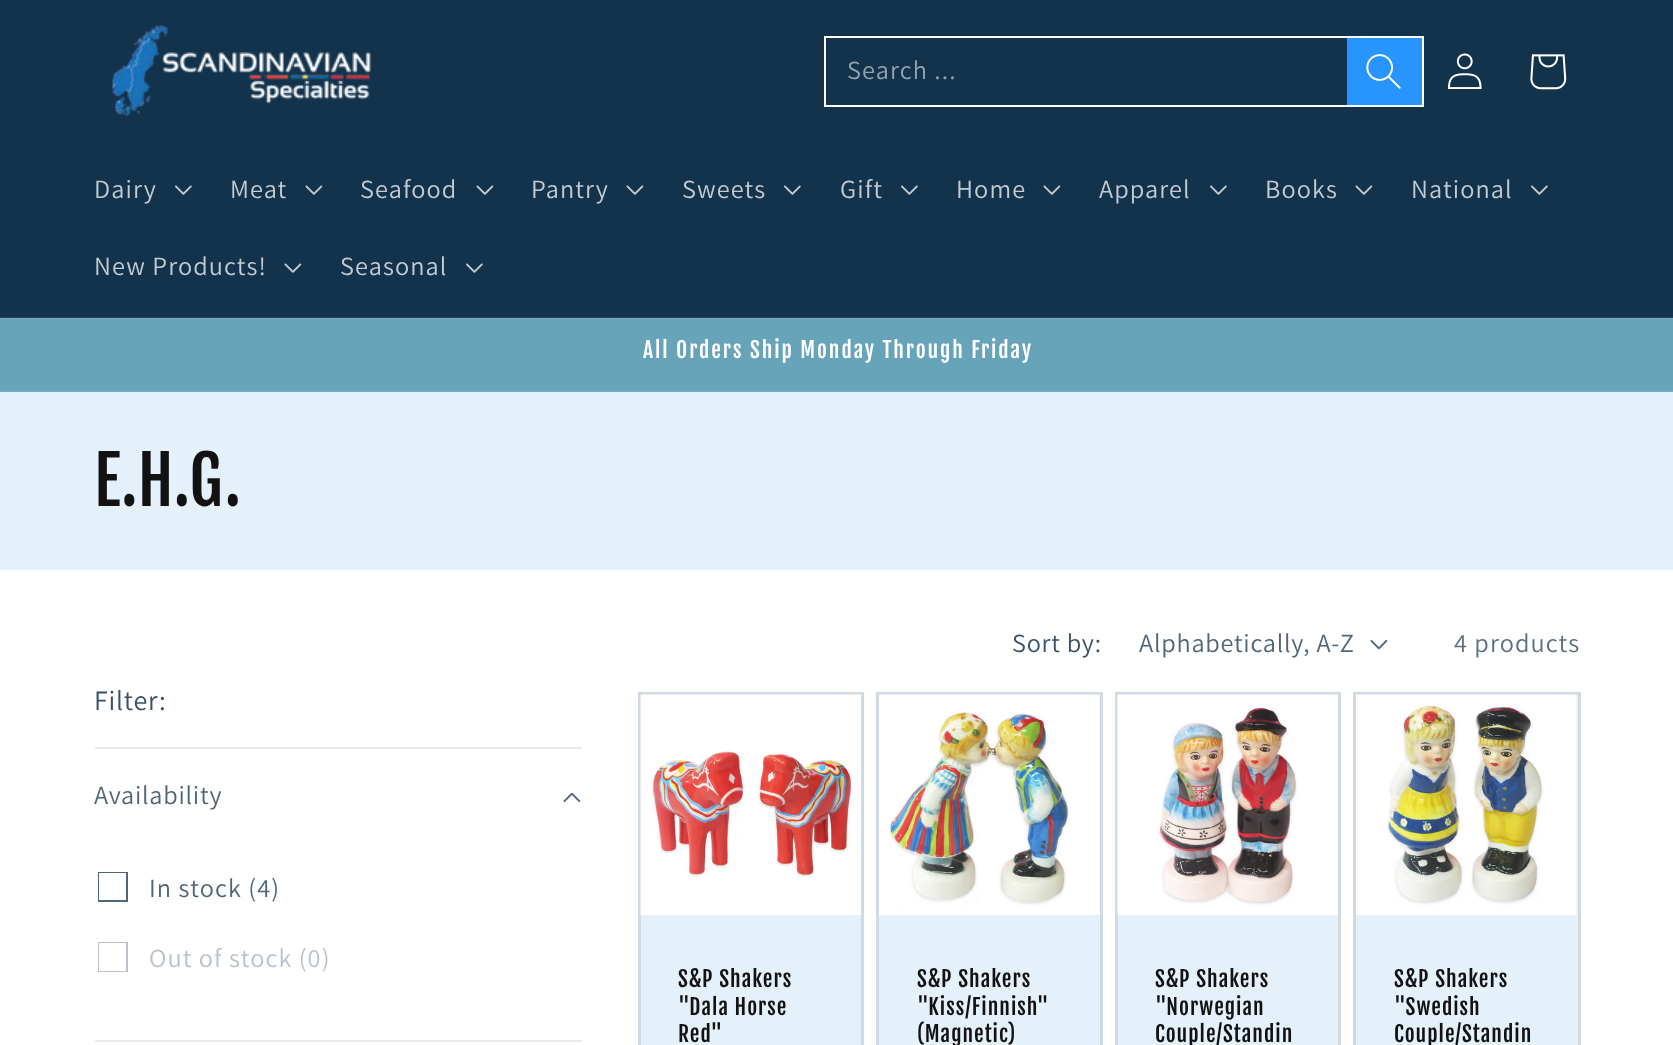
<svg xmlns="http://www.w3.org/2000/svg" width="1673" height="1045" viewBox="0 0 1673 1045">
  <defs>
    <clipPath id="clip1"><rect x="98" y="872" width="30" height="30"/></clipPath>
    <clipPath id="clip2"><rect x="98" y="942" width="30" height="30"/></clipPath>
  </defs>
  <rect width="100%" height="100%" fill="rgb(255,255,255)"/>
  <rect x="0" y="0" width="1673" height="317" fill="rgb(19,51,77)"/>
  <rect x="0" y="317" width="1673" height="1" fill="rgb(38,67,91)"/>
  <image x="111" y="25" width="260" height="91" href="pic1.png"/>
  <rect x="825" y="37" width="598" height="69" fill="none" stroke="rgb(255,255,255)" stroke-width="2"/>
  <text x="847" y="79" font-family="Assistant" font-size="26.25" letter-spacing="1.1" fill="rgb(149,163,175)">Search ...</text>
  <rect x="1347" y="38" width="75" height="67" fill="rgb(40,149,255)"/>
  <image x="1366" y="54" width="35" height="35" href="pic2.png"/>
  <image x="1447" y="53" width="35" height="36" href="pic3.png"/>
  <image x="1530" y="54" width="37" height="36" href="pic4.png"/>
  <text x="94" y="198" font-family="Assistant" font-size="26.25" letter-spacing="1.1" fill="rgb(196,204,211)">Dairy</text>
  <image x="175" y="185" width="17" height="10" href="pic5.png"/>
  <text x="230" y="198" font-family="Assistant" font-size="26.25" letter-spacing="1.1" fill="rgb(196,204,211)">Meat</text>
  <image x="305" y="185" width="18" height="10" href="pic6.png"/>
  <text x="360" y="198" font-family="Assistant" font-size="26.25" letter-spacing="1.1" fill="rgb(196,204,211)">Seafood</text>
  <image x="476" y="185" width="18" height="10" href="pic6.png"/>
  <text x="531" y="198" font-family="Assistant" font-size="26.25" letter-spacing="1.1" fill="rgb(196,204,211)">Pantry</text>
  <image x="626" y="185" width="18" height="10" href="pic6.png"/>
  <text x="682" y="198" font-family="Assistant" font-size="26.25" letter-spacing="1.1" fill="rgb(196,204,211)">Sweets</text>
  <image x="784" y="185" width="17" height="10" href="pic5.png"/>
  <text x="840" y="198" font-family="Assistant" font-size="26.25" letter-spacing="1.1" fill="rgb(196,204,211)">Gift</text>
  <image x="901" y="185" width="17" height="10" href="pic5.png"/>
  <text x="956" y="198" font-family="Assistant" font-size="26.25" letter-spacing="1.1" fill="rgb(196,204,211)">Home</text>
  <image x="1043" y="185" width="18" height="10" href="pic6.png"/>
  <text x="1099" y="198" font-family="Assistant" font-size="26.25" letter-spacing="1.1" fill="rgb(196,204,211)">Apparel</text>
  <image x="1210" y="185" width="17" height="10" href="pic5.png"/>
  <text x="1265" y="198" font-family="Assistant" font-size="26.25" letter-spacing="1.1" fill="rgb(196,204,211)">Books</text>
  <image x="1355" y="185" width="18" height="10" href="pic6.png"/>
  <text x="1411" y="198" font-family="Assistant" font-size="26.25" letter-spacing="1.1" fill="rgb(196,204,211)">National</text>
  <image x="1531" y="185" width="17" height="10" href="pic5.png"/>
  <text x="94" y="275" font-family="Assistant" font-size="26.25" letter-spacing="1.1" fill="rgb(196,204,211)">New Products!</text>
  <image x="284" y="263" width="18" height="10" href="pic6.png"/>
  <text x="340" y="275" font-family="Assistant" font-size="26.25" letter-spacing="1.1" fill="rgb(196,204,211)">Seasonal</text>
  <image x="466" y="263" width="17" height="10" href="pic5.png"/>
  <rect x="0" y="319" width="1673" height="71" fill="rgb(103,164,186)"/>
  <rect x="0" y="318" width="1673" height="1" fill="rgb(115,171,192)"/>
  <rect x="0" y="390" width="1673" height="2" fill="rgb(115,171,192)"/>
  <text x="643" y="358" font-family="Fjalla One" font-size="21.5" letter-spacing="1.9" fill="rgb(255,255,255)">All Orders Ship Monday Through Friday</text>
  <rect x="0" y="392" width="1673" height="178" fill="rgb(228,241,251)"/>
  <text x="94" y="506" font-family="Fjalla One" font-size="66" letter-spacing="1" fill="rgb(18,18,18)">E.H.G.</text>
  <text x="1012" y="652" font-family="Assistant" font-size="26.25" letter-spacing="0.75" fill="rgb(54,82,104)">Sort by:</text>
  <text x="1139" y="652" font-family="Assistant" font-size="26.25" letter-spacing="0.75" fill="rgb(78,102,122)">Alphabetically, A-Z</text>
  <image x="1370" y="640" width="18" height="10" href="pic7.png"/>
  <text x="1454" y="652" font-family="Assistant" font-size="26.25" letter-spacing="1.1" fill="rgb(90,112,130)">4 products</text>
  <text x="94" y="710" font-family="Assistant" font-size="28" letter-spacing="0.75" fill="rgb(54,82,104)">Filter:</text>
  <rect x="95" y="747" width="487" height="2" fill="rgb(231,235,237)"/>
  <text x="94" y="804" font-family="Assistant" font-size="26.25" letter-spacing="0.75" fill="rgb(78,102,122)">Availability</text>
  <image x="563" y="792" width="18" height="11" href="pic8.png"/>
  <g clip-path="url(#clip1)">
    <rect x="98" y="872" width="29" height="29" fill="none" stroke="rgb(78,102,122)" stroke-width="2"/>
  </g>
  <text x="149" y="897" font-family="Assistant" font-size="26.25" letter-spacing="1.1" fill="rgb(78,102,122)">In stock (4)</text>
  <g clip-path="url(#clip2)">
    <rect x="98" y="942" width="29" height="30" fill="none" stroke="rgb(185,194,202)" stroke-width="2"/>
  </g>
  <text x="149" y="967" font-family="Assistant" font-size="26.25" letter-spacing="1.1" fill="rgb(185,194,202)">Out of stock (0)</text>
  <rect x="95" y="1040" width="487" height="2" fill="rgb(231,235,237)"/>
  <rect x="641" y="915" width="220" height="130" fill="rgb(228,241,251)"/>
  <rect x="639.5" y="693.5" width="223" height="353" fill="none" stroke="rgb(207,219,228)" stroke-width="3"/>
  <image x="640" y="694" width="221" height="221" href="pic9.png"/>
  <g font-family="Fjalla One" font-size="21.5" letter-spacing="1" fill="rgb(18,18,18)">
    <text>
      <tspan x="678" y="987">S&amp;P Shakers</tspan>
      <tspan x="678" y="1015">"Dala Horse</tspan>
      <tspan x="678" y="1042">Red"</tspan>
    </text>
  </g>
  <rect x="877.5" y="693.5" width="224" height="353" fill="rgb(228,241,251)" stroke="rgb(207,219,228)" stroke-width="3"/>
  <image x="879" y="694" width="221" height="221" href="pic10.png"/>
  <g font-family="Fjalla One" font-size="21.5" letter-spacing="1" fill="rgb(18,18,18)">
    <text>
      <tspan x="917" y="987">S&amp;P Shakers</tspan>
      <tspan x="917" y="1015">"Kiss/Finnish"</tspan>
      <tspan x="917" y="1042">(Magnetic)</tspan>
    </text>
  </g>
  <rect x="1118" y="915" width="220" height="130" fill="rgb(228,241,251)"/>
  <rect x="1116.5" y="693.5" width="223" height="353" fill="none" stroke="rgb(207,219,228)" stroke-width="3"/>
  <image x="1117" y="694" width="221" height="221" href="pic11.png"/>
  <g font-family="Fjalla One" font-size="21.5" letter-spacing="1" fill="rgb(18,18,18)">
    <text>
      <tspan x="1155" y="987">S&amp;P Shakers</tspan>
      <tspan x="1155" y="1015">"Norwegian</tspan>
      <tspan x="1155" y="1042">Couple/Standin</tspan>
    </text>
  </g>
  <rect x="1354.5" y="693.5" width="225" height="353" fill="rgb(228,241,251)" stroke="rgb(207,219,228)" stroke-width="3"/>
  <image x="1356" y="694" width="221" height="221" href="pic12.png"/>
  <g font-family="Fjalla One" font-size="21.5" letter-spacing="1" fill="rgb(18,18,18)">
    <text>
      <tspan x="1394" y="987">S&amp;P Shakers</tspan>
      <tspan x="1394" y="1015">"Swedish</tspan>
      <tspan x="1394" y="1042">Couple/Standin</tspan>
    </text>
  </g>
</svg>
